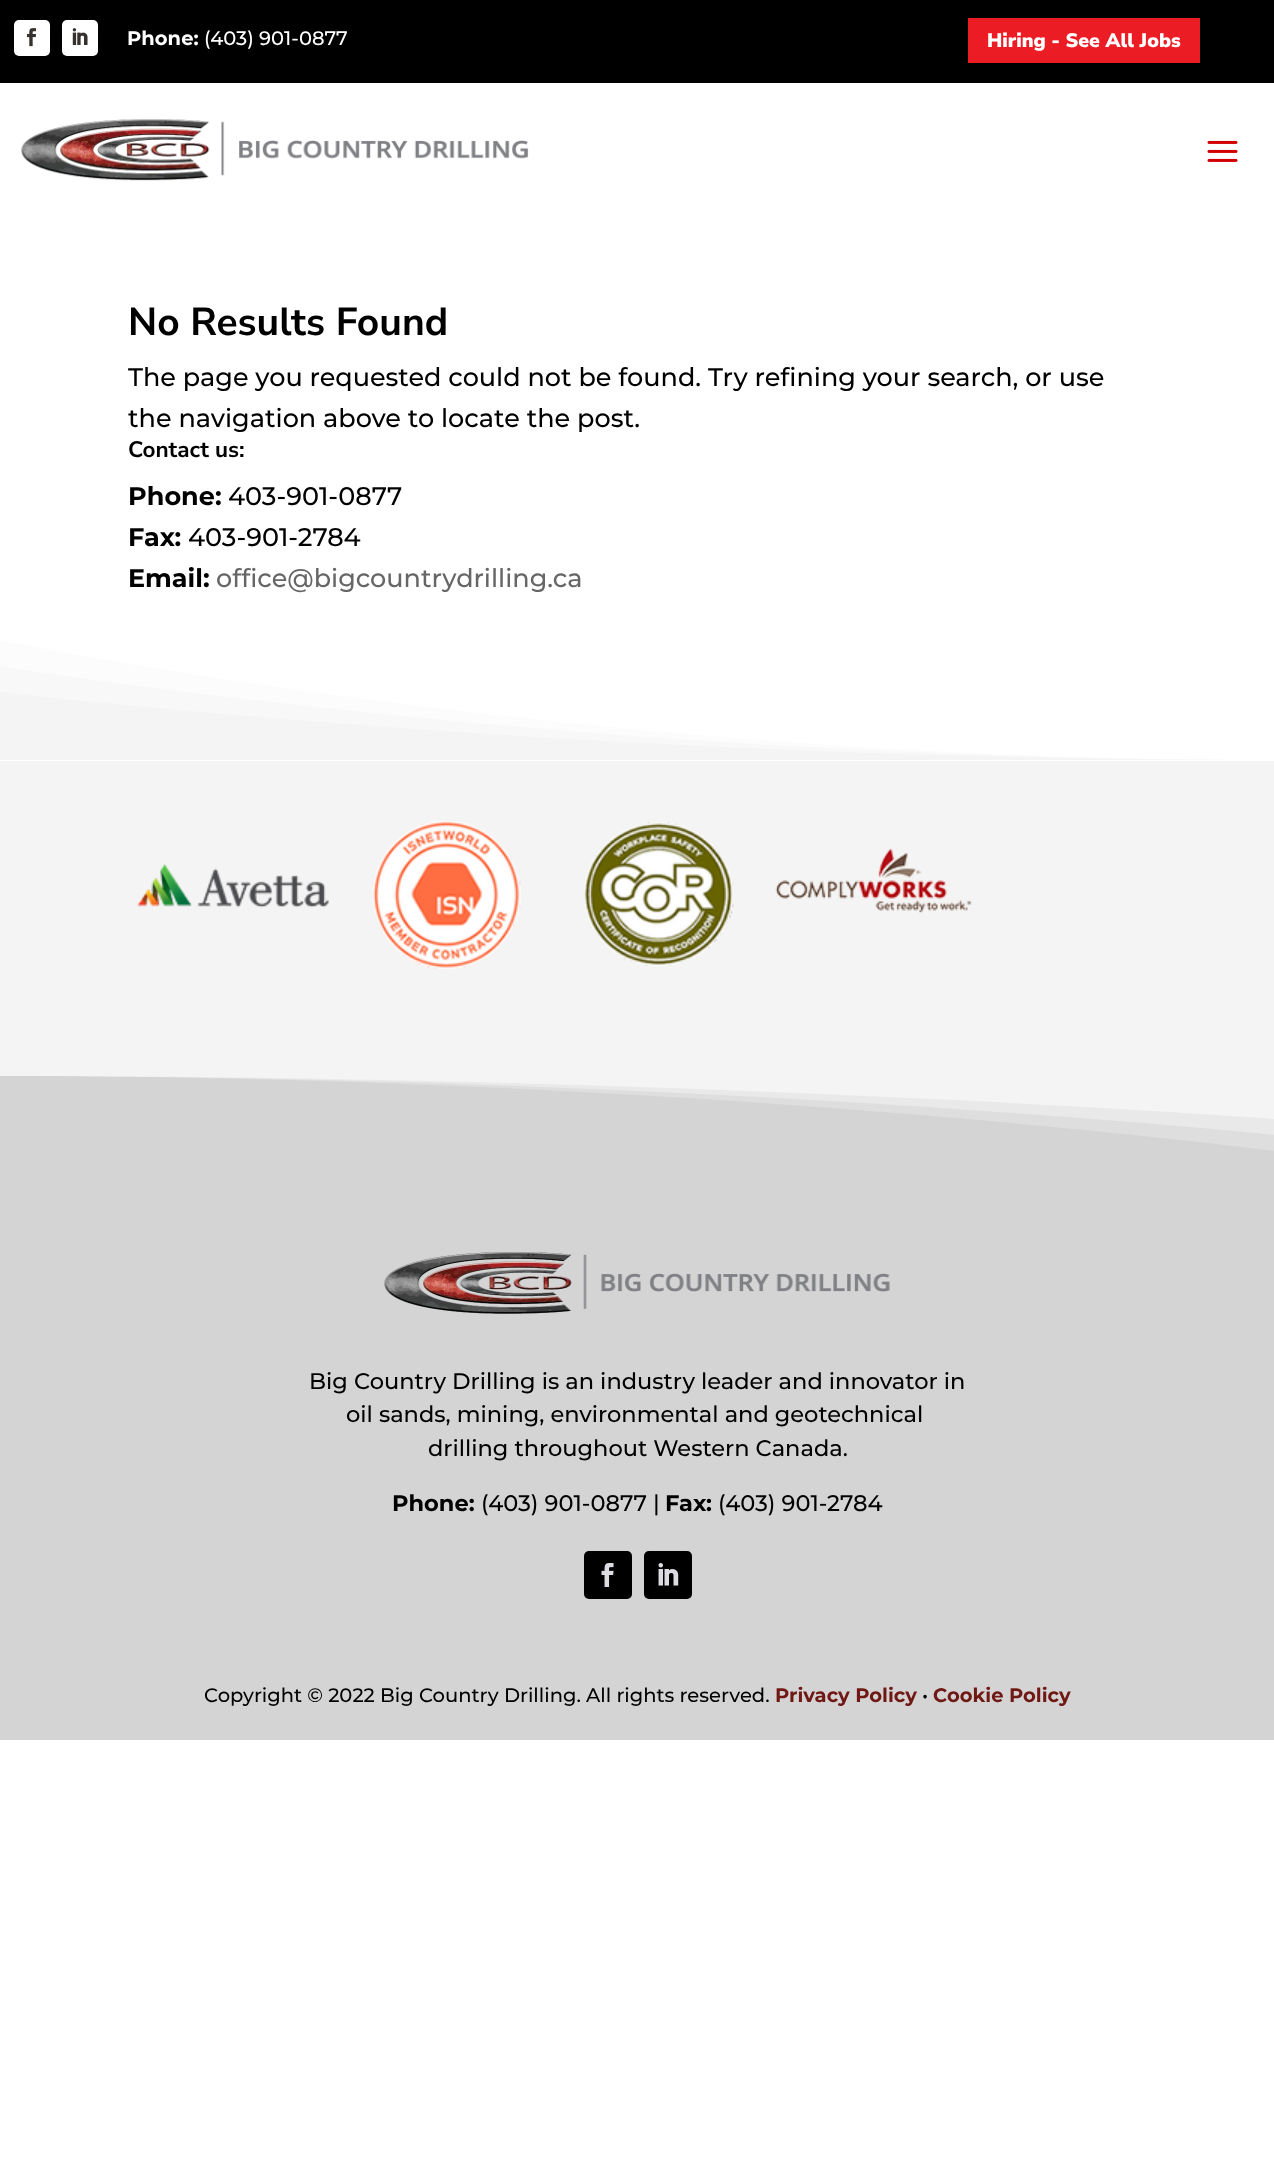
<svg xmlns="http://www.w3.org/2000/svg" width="1274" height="2179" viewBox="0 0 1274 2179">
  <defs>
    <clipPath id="clip1"><rect x="0" y="641" width="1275" height="120"/></clipPath>
  </defs>
  <rect width="100%" height="100%" fill="rgb(255,255,255)"/>
  <rect x="0" y="0" width="1274" height="83" fill="rgb(0,0,0)"/>
  <rect x="14" y="20" width="36" height="36" rx="5" fill="rgb(255,255,255)"/>
  <image x="27" y="28" width="9" height="19" href="pic1.png"/>
  <rect x="62" y="20" width="36" height="36" rx="5" fill="rgb(255,255,255)"/>
  <image x="72" y="28" width="16" height="17" href="pic2.png"/>
  <text x="127" y="45" font-family="Montserrat" font-size="19.5" font-weight="bold" fill="rgb(255,255,255)">Phone:</text>
  <text x="204" y="45" font-family="Montserrat" font-size="19.5" font-weight="500" fill="rgb(255,255,255)">(403) 901-0877</text>
  <rect x="968" y="18" width="232" height="45" fill="rgb(236,28,36)"/>
  <text x="987" y="47" font-family="Nunito Sans" font-size="19.5" font-weight="900" fill="rgb(255,255,255)">Hiring - See All Jobs</text>
  <image x="21" y="119" width="508" height="62" href="pic3.png"/>
  <image x="1207" y="140" width="31" height="22" href="pic4.png"/>
  <text x="128" y="335" font-family="Nunito Sans" font-size="39" font-weight="bold" fill="rgb(0,0,0)">No Results Found</text>
  <g font-family="Montserrat" font-size="25.5" font-weight="500" fill="rgb(0,0,0)">
    <text>
      <tspan x="128" y="386">The page you requested could not be found. Try refining your search, or use</tspan>
      <tspan x="128" y="427">the navigation above to locate the post.</tspan>
    </text>
  </g>
  <text x="128" y="457" font-family="Nunito Sans" font-size="22.5" font-weight="bold" fill="rgb(0,0,0)">Contact us:</text>
  <text x="128" y="505" font-family="Montserrat" font-size="25.5" font-weight="bold" fill="rgb(0,0,0)">Phone:</text>
  <text x="228" y="505" font-family="Montserrat" font-size="25.5" font-weight="500" fill="rgb(0,0,0)">403-901-0877</text>
  <text x="128" y="546" font-family="Montserrat" font-size="25.5" font-weight="bold" fill="rgb(0,0,0)">Fax:</text>
  <text x="188" y="546" font-family="Montserrat" font-size="25.5" font-weight="500" fill="rgb(0,0,0)">403-901-2784</text>
  <text x="128" y="587" font-family="Montserrat" font-size="25.5" font-weight="bold" fill="rgb(0,0,0)">Email:</text>
  <text x="216" y="587" font-family="Montserrat" font-size="25.5" font-weight="500" fill="rgb(102,102,102)">office@bigcountrydrilling.ca</text>
  <g clip-path="url(#clip1)">
    <path d="M0 760H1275C571 760 0 640 0 640Z" fill="rgb(252,252,252)"/>
  </g>
  <path d="M0 760H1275C571 760 0 666 0 666Z" fill="rgb(248,248,248)"/>
  <path d="M0 760H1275C571 760 0 692 0 692Z" fill="rgb(244,244,244)"/>
  <rect x="0" y="761" width="1274" height="315" fill="rgb(244,244,244)"/>
  <image x="137" y="863" width="192" height="45" href="pic5.png"/>
  <image x="372" y="821" width="149" height="148" href="pic6.png"/>
  <image x="584" y="822" width="150" height="144" href="pic7.png"/>
  <image x="775" y="848" width="197" height="65" href="pic8.png"/>
  <rect x="0" y="1076" width="1274" height="664" fill="rgb(212,212,212)"/>
  <path d="M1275 1076H0C704 1076 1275 1151 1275 1151Z" fill="rgb(222,222,222)"/>
  <path d="M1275 1076H0C704 1076 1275 1135 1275 1135Z" fill="rgba(244,244,244,0.5)"/>
  <path d="M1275 1076H0C704 1076 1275 1119 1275 1119Z" fill="rgb(244,244,244)"/>
  <image x="384" y="1252" width="506" height="62" href="pic9.png"/>
  <g font-family="Montserrat" font-size="22.5" font-weight="500" fill="rgb(0,0,0)">
    <text x="309" y="1389">Big Country Drilling is an industry leader and innovator in</text>
    <text x="346" y="1422">oil sands, mining, environmental and geotechnical</text>
    <text x="428" y="1456">drilling throughout Western Canada.</text>
  </g>
  <text x="392" y="1511" font-family="Montserrat" font-size="22.5" font-weight="bold" fill="rgb(0,0,0)">Phone:</text>
  <text x="481" y="1511" font-family="Montserrat" font-size="22.5" font-weight="500" fill="rgb(0,0,0)">(403) 901-0877 |</text>
  <text x="665" y="1511" font-family="Montserrat" font-size="22.5" font-weight="bold" fill="rgb(0,0,0)">Fax:</text>
  <text x="718" y="1511" font-family="Montserrat" font-size="22.5" font-weight="500" fill="rgb(0,0,0)">(403) 901-2784</text>
  <rect x="584" y="1551" width="48" height="48" rx="5" fill="rgb(0,0,0)"/>
  <image x="601" y="1563" width="13" height="24" href="pic10.png"/>
  <rect x="644" y="1551" width="48" height="48" rx="5" fill="rgb(0,0,0)"/>
  <image x="658" y="1563" width="21" height="23" href="pic11.png"/>
  <text x="204" y="1702" font-family="Montserrat" font-size="19.5" font-weight="500" fill="rgb(0,0,0)">Copyright © 2022 Big Country Drilling. All rights reserved.</text>
  <text x="775" y="1702" font-family="Montserrat" font-size="19.5" font-weight="bold" fill="rgb(112,24,20)">Privacy Policy</text>
  <text x="922" y="1702" font-family="Montserrat" font-size="19.5" font-weight="500" fill="rgb(0,0,0)">•</text>
  <text x="933" y="1702" font-family="Montserrat" font-size="19.5" font-weight="bold" fill="rgb(112,24,20)">Cookie Policy</text>
</svg>
